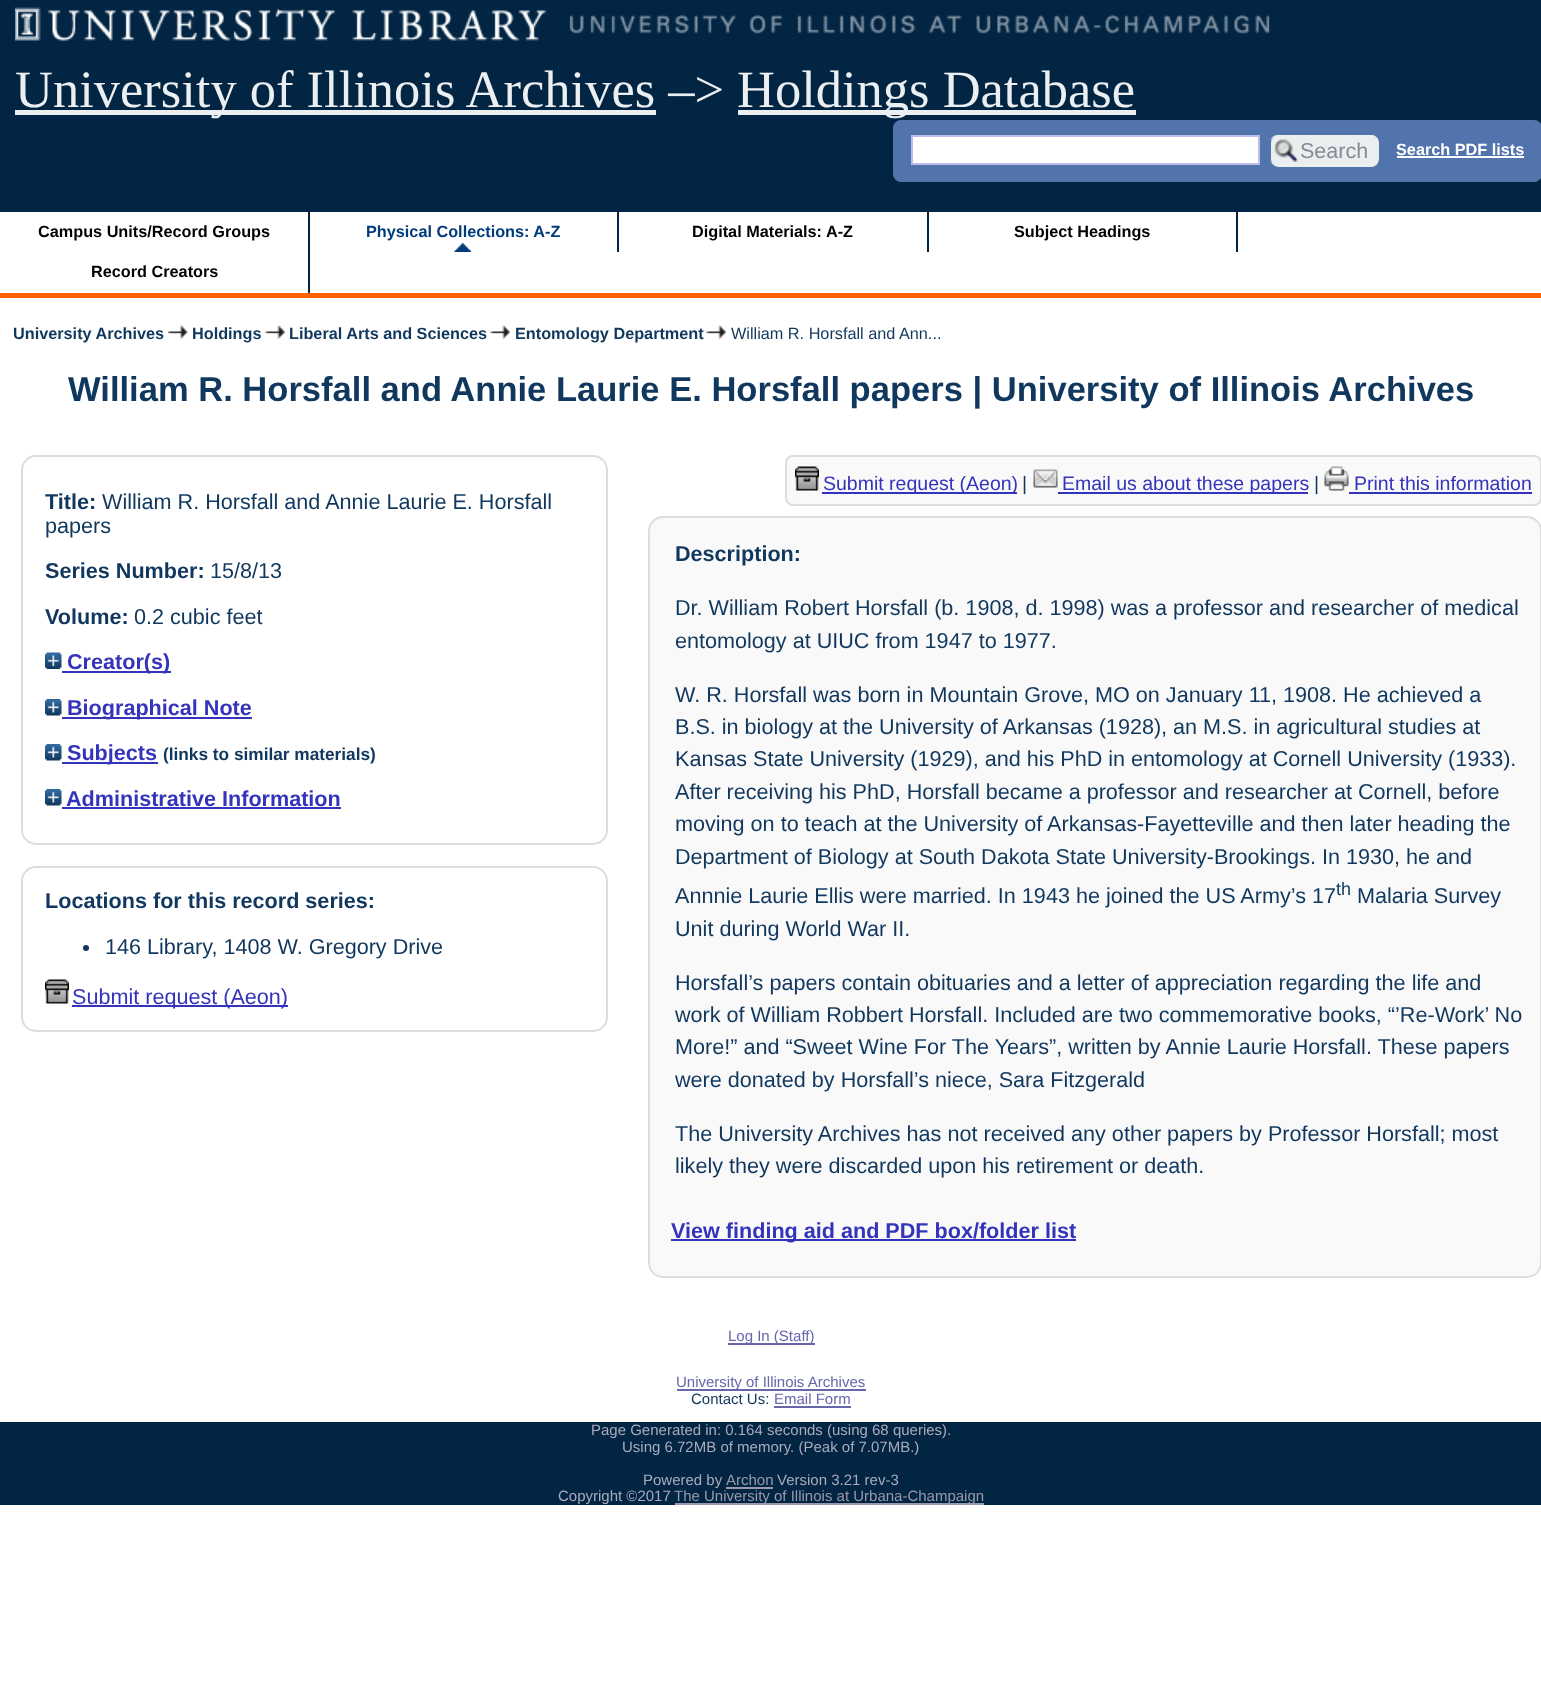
<svg xmlns="http://www.w3.org/2000/svg" width="1541" height="1683" viewBox="0 0 1541 1683">
  <rect width="100%" height="100%" fill="rgb(255,255,255)"/>
  <rect x="0" y="0" width="1541" height="212" fill="rgb(2,37,68)"/>
  <image x="15" y="7" width="1255" height="34" href="pic1.png"/>
  <rect x="0" y="293" width="1541" height="5" fill="rgb(250,99,0)"/>
  <rect x="15" y="110" width="641" height="5" fill="rgb(236,239,241)"/>
  <text x="15" y="107" font-family="Liberation Serif" font-size="52.5" fill="rgb(236,239,241)">University of Illinois Archives –&gt;</text>
  <rect x="738" y="110" width="398" height="5" fill="rgb(236,239,241)"/>
  <text x="737" y="107" font-family="Liberation Serif" font-size="52.5" fill="rgb(236,239,241)">Holdings Database</text>
  <rect x="894" y="121" width="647" height="60" rx="7" fill="rgb(82,116,172)" stroke="rgb(82,116,172)" stroke-width="2"/>
  <rect x="912" y="136" width="347" height="28" fill="rgb(255,255,255)" stroke="rgb(187,187,238)" stroke-width="2"/>
  <rect x="1271" y="135" width="108" height="32" rx="8" fill="rgb(235,238,239)"/>
  <image x="1274" y="138" width="24" height="24" href="pic2.png"/>
  <path d="M1278 135H1371C1375 135 1378 138 1378 142V159C1378 163 1375 166 1371 166H1278C1274 166 1270 163 1270 159V142C1270 138 1274 135 1278 135ZM1278 136H1371C1374 136 1377 139 1377 142V159C1377 162 1374 165 1371 165H1278C1274 165 1270 162 1270 159V142C1270 139 1274 136 1278 136Z" fill="rgb(235,238,239)" fill-rule="evenodd"/>
  <text x="1300" y="158" font-family="Liberation Sans" font-size="21.5" fill="rgb(136,136,153)">Search</text>
  <text x="1396" y="155" font-family="Liberation Sans" font-size="16.25" font-weight="bold" fill="rgb(255,255,255)">Search PDF lists</text>
  <rect x="1397" y="156" width="127" height="2" fill="rgb(255,255,255)"/>
  <rect x="308" y="212" width="2" height="81" fill="rgb(2,37,68)"/>
  <text x="38" y="237" font-family="Liberation Sans" font-size="16.25" font-weight="bold" fill="rgb(0,0,0)">Campus Units/Record Groups</text>
  <image x="454" y="243" width="17" height="9" href="pic3.png"/>
  <rect x="617" y="212" width="2" height="40" fill="rgb(2,37,68)"/>
  <text x="366" y="237" font-family="Liberation Sans" font-size="16.25" font-weight="bold" fill="rgb(0,60,123)">Physical Collections: A-Z</text>
  <rect x="927" y="212" width="2" height="40" fill="rgb(2,37,68)"/>
  <text x="692" y="237" font-family="Liberation Sans" font-size="16.25" font-weight="bold" fill="rgb(0,0,0)">Digital Materials: A-Z</text>
  <rect x="1236" y="212" width="2" height="40" fill="rgb(2,37,68)"/>
  <g font-family="Liberation Sans" font-size="16.25" font-weight="bold" fill="rgb(0,0,0)">
    <text x="1014" y="237">Subject Headings</text>
    <text x="91" y="277">Record Creators</text>
  </g>
  <text x="13" y="339" font-family="Liberation Sans" font-size="16.25" font-weight="bold" fill="rgb(16,55,93)">University Archives</text>
  <image x="168" y="325" width="20" height="14" href="pic4.png"/>
  <text x="192" y="339" font-family="Liberation Sans" font-size="16.25" font-weight="bold" fill="rgb(16,55,93)">Holdings</text>
  <image x="265" y="325" width="20" height="14" href="pic5.png"/>
  <text x="289" y="339" font-family="Liberation Sans" font-size="16.25" font-weight="bold" fill="rgb(16,55,93)">Liberal Arts and Sciences</text>
  <image x="490" y="325" width="20" height="14" href="pic5.png"/>
  <text x="515" y="339" font-family="Liberation Sans" font-size="16.25" font-weight="bold" fill="rgb(16,55,93)">Entomology Department</text>
  <image x="706" y="325" width="20" height="14" href="pic6.png"/>
  <text x="731" y="339" font-family="Liberation Sans" font-size="16.25" fill="rgb(16,55,93)">William R. Horsfall and Ann...</text>
  <text x="68" y="401" font-family="Liberation Sans" font-size="34.55" font-weight="bold" fill="rgb(16,55,93)">William R. Horsfall and Annie Laurie E. Horsfall papers | University of Illinois Archives</text>
  <rect x="22" y="456" width="585" height="388" rx="14" fill="none" stroke="rgb(221,221,221)" stroke-width="2"/>
  <text x="45" y="509" font-family="Liberation Sans" font-size="21.6" font-weight="bold" fill="rgb(16,55,93)">Title:</text>
  <g font-family="Liberation Sans" font-size="21.6" fill="rgb(16,55,93)">
    <text x="102" y="509">William R. Horsfall and Annie Laurie E. Horsfall</text>
    <text x="45" y="533">papers</text>
  </g>
  <text x="45" y="578" font-family="Liberation Sans" font-size="21.6" font-weight="bold" fill="rgb(16,55,93)">Series Number:</text>
  <text x="210" y="578" font-family="Liberation Sans" font-size="21.6" fill="rgb(16,55,93)">15/8/13</text>
  <text x="45" y="624" font-family="Liberation Sans" font-size="21.6" font-weight="bold" fill="rgb(16,55,93)">Volume:</text>
  <text x="134" y="624" font-family="Liberation Sans" font-size="21.6" fill="rgb(16,55,93)">0.2 cubic feet</text>
  <image x="45" y="652" width="17" height="17" href="pic7.png"/>
  <rect x="62" y="671" width="109" height="2" fill="rgb(51,51,187)"/>
  <text x="67" y="669" font-family="Liberation Sans" font-size="21.6" font-weight="bold" fill="rgb(51,51,187)">Creator(s)</text>
  <image x="45" y="699" width="17" height="17" href="pic8.png"/>
  <rect x="62" y="717" width="190" height="2" fill="rgb(51,51,187)"/>
  <text x="67" y="715" font-family="Liberation Sans" font-size="21.6" font-weight="bold" fill="rgb(51,51,187)">Biographical Note</text>
  <image x="45" y="744" width="17" height="17" href="pic8.png"/>
  <rect x="62" y="762" width="96" height="2" fill="rgb(51,51,187)"/>
  <text x="67" y="760" font-family="Liberation Sans" font-size="21.6" font-weight="bold" fill="rgb(51,51,187)">Subjects</text>
  <text x="163" y="760" font-family="Liberation Sans" font-size="17.25" font-weight="bold" fill="rgb(16,55,93)">(links to similar materials)</text>
  <image x="45" y="789" width="17" height="17" href="pic8.png"/>
  <text x="66" y="806" font-family="Liberation Sans" font-size="21.6" font-weight="bold" fill="rgb(51,51,187)">Administrative Information</text>
  <rect x="62" y="807" width="279" height="2" fill="rgb(51,51,187)"/>
  <rect x="22" y="867" width="585" height="164" rx="14" fill="none" stroke="rgb(221,221,221)" stroke-width="2"/>
  <text x="45" y="908" font-family="Liberation Sans" font-size="21.6" font-weight="bold" fill="rgb(16,55,93)">Locations for this record series:</text>
  <circle cx="86" cy="948" r="3" fill="rgb(16,55,93)"/>
  <text x="105" y="954" font-family="Liberation Sans" font-size="21.6" fill="rgb(16,55,93)">146 Library, 1408 W. Gregory Drive</text>
  <image x="45" y="979" width="24" height="25" href="pic9.png"/>
  <rect x="72" y="1005" width="216" height="2" fill="rgb(51,51,187)"/>
  <text x="72" y="1004" font-family="Liberation Sans" font-size="21.6" fill="rgb(51,51,187)">Submit request (Aeon)</text>
  <rect x="786" y="456" width="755" height="49" rx="7" fill="rgb(249,249,250)" stroke="rgb(221,221,221)" stroke-width="2"/>
  <image x="795" y="466" width="24" height="25" href="pic10.png"/>
  <rect x="822" y="492" width="195" height="2" fill="rgb(51,51,187)"/>
  <text x="823" y="490" font-family="Liberation Sans" font-size="19.5" fill="rgb(51,51,187)">Submit request (Aeon)</text>
  <text x="1022" y="490" font-family="Liberation Sans" font-size="19.5" fill="rgb(16,55,93)">|</text>
  <image x="1033" y="469" width="25" height="19" href="pic11.png"/>
  <rect x="1058" y="492" width="250" height="2" fill="rgb(51,51,187)"/>
  <text x="1062" y="490" font-family="Liberation Sans" font-size="19.5" fill="rgb(51,51,187)">Email us about these papers</text>
  <text x="1314" y="490" font-family="Liberation Sans" font-size="19.5" fill="rgb(16,55,93)">|</text>
  <image x="1324" y="466" width="25" height="25" href="pic12.png"/>
  <text x="1354" y="490" font-family="Liberation Sans" font-size="19.5" fill="rgb(51,51,187)">Print this information</text>
  <rect x="1349" y="492" width="183" height="2" fill="rgb(51,51,187)"/>
  <rect x="649" y="517" width="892" height="760" rx="14" fill="rgb(249,249,250)" stroke="rgb(221,221,221)" stroke-width="2"/>
  <text x="675" y="561" font-family="Liberation Sans" font-size="21.6" font-weight="bold" fill="rgb(16,55,93)">Description:</text>
  <g font-family="Liberation Sans" font-size="21.6" fill="rgb(16,55,93)">
    <text>
      <tspan x="675" y="615">Dr. William Robert Horsfall (b. 1908, d. 1998) was a professor and researcher of medical</tspan>
      <tspan x="675" y="648">entomology at UIUC from 1947 to 1977.</tspan>
    </text>
    <text>
      <tspan x="675" y="702">W. R. Horsfall was born in Mountain Grove, MO on January 11, 1908. He achieved a</tspan>
      <tspan x="675" y="734">B.S. in biology at the University of Arkansas (1928), an M.S. in agricultural studies at</tspan>
      <tspan x="675" y="766">Kansas State University (1929), and his PhD in entomology at Cornell University (1933).</tspan>
      <tspan x="675" y="799">After receiving his PhD, Horsfall became a professor and researcher at Cornell, before</tspan>
      <tspan x="675" y="831">moving on to teach at the University of Arkansas-Fayetteville and then later heading the</tspan>
      <tspan x="675" y="864">Department of Biology at South Dakota State University-Brookings. In 1930, he and</tspan>
      <tspan x="675" y="903">Annnie Laurie Ellis were married. In 1943 he joined the US Army’s 17</tspan>
    </text>
  </g>
  <text x="1336" y="895" font-family="Liberation Sans" font-size="18" fill="rgb(16,55,93)">th</text>
  <g font-family="Liberation Sans" font-size="21.6" fill="rgb(16,55,93)">
    <text x="1357" y="903">Malaria Survey</text>
    <text x="675" y="936">Unit during World War II.</text>
    <text>
      <tspan x="675" y="990">Horsfall’s papers contain obituaries and a letter of appreciation regarding the life and</tspan>
      <tspan x="675" y="1022">work of William Robbert Horsfall. Included are two commemorative books, “’Re-Work’ No</tspan>
      <tspan x="675" y="1054">More!” and “Sweet Wine For The Years”, written by Annie Laurie Horsfall. These papers</tspan>
      <tspan x="675" y="1087">were donated by Horsfall’s niece, Sara Fitzgerald</tspan>
    </text>
    <text>
      <tspan x="675" y="1141">The University Archives has not received any other papers by Professor Horsfall; most</tspan>
      <tspan x="675" y="1173">likely they were discarded upon his retirement or death.</tspan>
    </text>
  </g>
  <rect x="671" y="1239" width="405" height="2" fill="rgb(51,51,187)"/>
  <text x="671" y="1238" font-family="Liberation Sans" font-size="21.6" font-weight="bold" fill="rgb(51,51,187)">View finding aid and PDF box/folder list</text>
  <rect x="728" y="1343" width="87" height="2" fill="rgb(102,102,170)"/>
  <text x="728" y="1341" font-family="Liberation Sans" font-size="15" fill="rgb(102,102,170)">Log In (Staff)</text>
  <rect x="677" y="1389" width="189" height="2" fill="rgb(102,102,170)"/>
  <text x="676" y="1387" font-family="Liberation Sans" font-size="15" fill="rgb(102,102,170)">University of Illinois Archives</text>
  <text x="691" y="1404" font-family="Liberation Sans" font-size="15" fill="rgb(16,55,93)">Contact Us:</text>
  <text x="774" y="1404" font-family="Liberation Sans" font-size="15" fill="rgb(102,102,170)">Email Form</text>
  <rect x="774" y="1406" width="77" height="2" fill="rgb(102,102,170)"/>
  <rect x="0" y="1422" width="1541" height="83" fill="rgb(2,37,68)"/>
  <g font-family="Liberation Sans" font-size="15" fill="rgb(170,170,187)">
    <text x="591" y="1435">Page Generated in: 0.164 seconds (using 68 queries).</text>
    <text x="622" y="1452">Using 6.72MB of memory. (Peak of 7.07MB.)</text>
    <text x="643" y="1485">Powered by</text>
  </g>
  <text x="726" y="1485" font-family="Liberation Sans" font-size="15" fill="rgb(153,153,170)">Archon</text>
  <rect x="726" y="1487" width="47" height="2" fill="rgb(153,153,170)"/>
  <g font-family="Liberation Sans" font-size="15" fill="rgb(170,170,187)">
    <text x="777" y="1485">Version 3.21 rev-3</text>
    <text x="558" y="1501">Copyright ©2017</text>
  </g>
  <rect x="675" y="1503" width="309" height="2" fill="rgb(153,153,170)"/>
  <text x="674" y="1501" font-family="Liberation Sans" font-size="15" fill="rgb(153,153,170)">The University of Illinois at Urbana-Champaign</text>
</svg>
